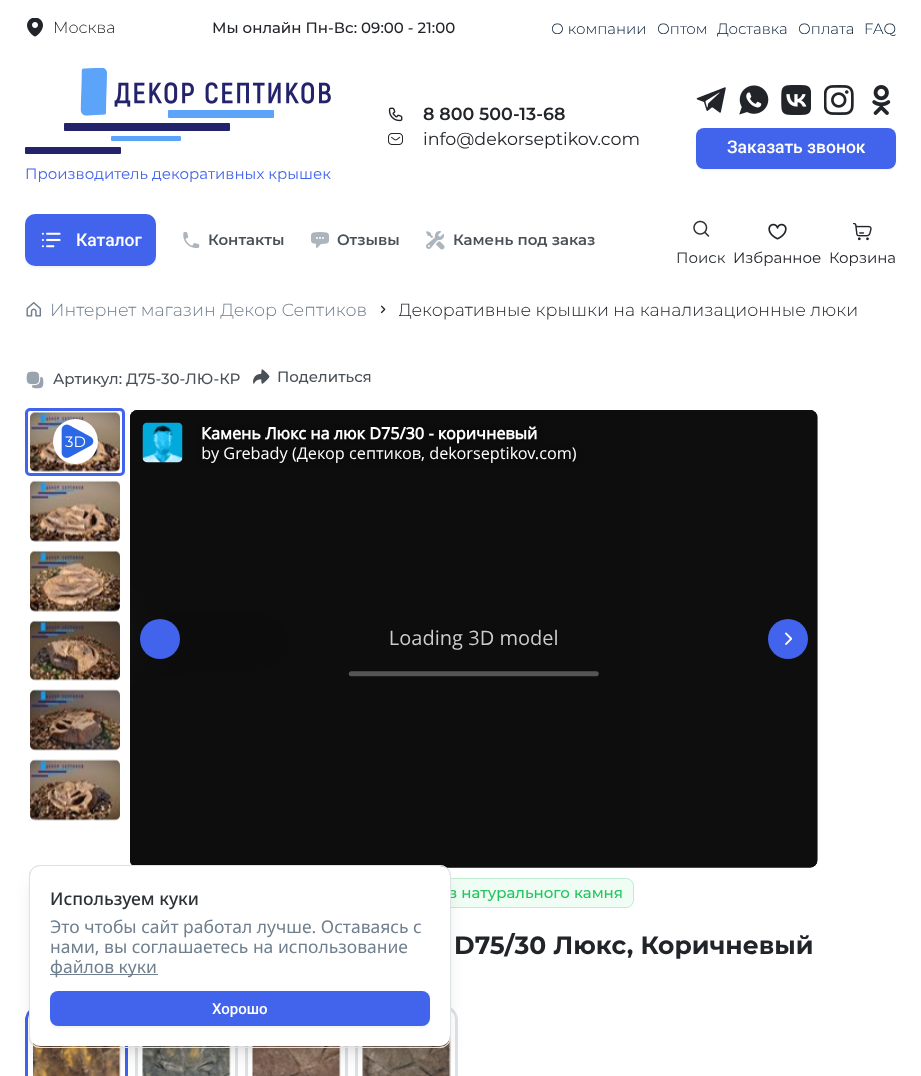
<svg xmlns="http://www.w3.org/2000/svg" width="921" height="1076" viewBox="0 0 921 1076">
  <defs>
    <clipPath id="clip1"><rect x="399" y="295" width="460" height="30"/></clipPath>
  </defs>
  <rect width="100%" height="100%" fill="rgb(255,255,255)"/>
  <image x="27" y="18" width="16" height="19" href="pic1.png"/>
  <text x="53" y="33" font-family="Montserrat" font-size="16" font-weight="300" fill="rgb(33,36,41)">Москва</text>
  <text x="212" y="33" font-family="Montserrat" font-size="15" font-weight="500" fill="rgb(33,36,41)">Мы онлайн Пн-Вс: 09:00 - 21:00</text>
  <g font-family="Montserrat" font-size="15" font-weight="300" fill="rgb(0,26,52)">
    <text x="551" y="34">О компании</text>
    <text x="657" y="34">Оптом</text>
    <text x="717" y="34">Доставка</text>
    <text x="798" y="34">Оплата</text>
    <text x="864" y="34">FAQ</text>
  </g>
  <image x="388" y="107" width="15" height="15" href="pic2.png"/>
  <text x="423" y="120" font-family="Montserrat" font-size="17.5" font-weight="600" fill="rgb(33,36,41)">8 800 500-13-68</text>
  <image x="388" y="133" width="15" height="12" href="pic3.png"/>
  <text x="423" y="145" font-family="Montserrat" font-size="17.5" fill="rgb(33,36,41)">info@dekorseptikov.com</text>
  <image x="696" y="87" width="30" height="26" href="pic4.png"/>
  <image x="739" y="85" width="30" height="30" href="pic5.png"/>
  <image x="781" y="85" width="30" height="30" href="pic6.png"/>
  <image x="824" y="85" width="30" height="30" href="pic7.png"/>
  <image x="872" y="85" width="19" height="30" href="pic8.png"/>
  <rect x="696" y="129" width="200" height="41" rx="8" fill="rgba(0,0,0,0.05)" filter="blur(1px)"/>
  <rect x="696" y="128" width="200" height="41" rx="8" fill="rgb(66,99,235)"/>
  <text x="727" y="153" font-family="Roboto" font-size="17.5" font-weight="500" fill="rgb(255,255,255)">Заказать звонок</text>
  <image x="25" y="68" width="306" height="86" href="pic9.png"/>
  <text x="25" y="179" font-family="Montserrat" font-size="15" fill="rgb(66,99,235)">Производитель декоративных крышек</text>
  <rect x="25" y="215" width="131" height="53" rx="10" fill="rgba(0,0,0,0.05)" filter="blur(1px)"/>
  <rect x="25" y="214" width="131" height="52" rx="10" fill="rgb(66,99,235)"/>
  <image x="41" y="232" width="20" height="16" href="pic10.png"/>
  <text x="76" y="246" font-family="Roboto" font-size="17.5" font-weight="500" fill="rgb(255,255,255)">Каталог</text>
  <image x="183" y="232" width="17" height="16" href="pic11.png"/>
  <text x="208" y="245" font-family="Montserrat" font-size="15" font-weight="600" fill="rgb(73,80,87)">Контакты</text>
  <image x="311" y="232" width="18" height="16" href="pic12.png"/>
  <text x="337" y="245" font-family="Montserrat" font-size="15" font-weight="600" fill="rgb(73,80,87)">Отзывы</text>
  <image x="426" y="231" width="19" height="19" href="pic13.png"/>
  <text x="453" y="245" font-family="Montserrat" font-size="15" font-weight="600" fill="rgb(73,80,87)">Камень под заказ</text>
  <image x="693" y="220" width="17" height="17" href="pic14.png"/>
  <text x="676" y="263" font-family="Montserrat" font-size="15" fill="rgb(44,49,53)">Поиск</text>
  <image x="768" y="223" width="19" height="17" href="pic15.png"/>
  <text x="733" y="263" font-family="Montserrat" font-size="15" fill="rgb(33,36,41)">Избранное</text>
  <image x="853" y="223" width="19" height="18" href="pic16.png"/>
  <text x="829" y="263" font-family="Montserrat" font-size="15" fill="rgb(33,36,41)">Корзина</text>
  <image x="26" y="302" width="16" height="15" href="pic17.png"/>
  <text x="50" y="316" font-family="Montserrat" font-size="17.5" font-weight="300" fill="rgb(112,127,141)">Интернет магазин Декор Септиков</text>
  <image x="380" y="305" width="6" height="9" href="pic18.png"/>
  <g clip-path="url(#clip1)">
    <text x="398" y="316" font-family="Montserrat" font-size="17.5" font-weight="300" fill="rgb(33,36,41)">Декоративные крышки на канализационные люки</text>
  </g>
  <image x="26" y="371" width="18" height="18" href="pic19.png"/>
  <text x="53" y="384" font-family="Montserrat" font-size="15" font-weight="500" fill="rgb(73,80,87)">Артикул: Д75-30-ЛЮ-КР</text>
  <image x="253" y="369" width="17" height="15" href="pic20.png"/>
  <text x="277" y="382" font-family="Montserrat" font-size="15" font-weight="500" fill="rgb(73,80,87)">Поделиться</text>
  <rect x="26.5" y="409.5" width="97" height="65" rx="3.5" fill="none" stroke="rgb(66,99,235)" stroke-width="3"/>
  <image x="30" y="412" width="90" height="60" href="pic21.png"/>
  <circle cx="75.5" cy="441.5" r="22.5" fill="rgb(255,255,255)"/>
  <image x="61" y="424" width="33" height="34" href="pic22.png"/>
  <text x="65" y="447" font-family="Montserrat" font-size="15" fill="rgb(255,255,255)">3D</text>
  <image x="30" y="480" width="90" height="62" href="pic23.png"/>
  <image x="30" y="550" width="90" height="62" href="pic24.png"/>
  <image x="30" y="620" width="90" height="61" href="pic25.png"/>
  <image x="30" y="689" width="90" height="62" href="pic26.png"/>
  <image x="30" y="759" width="90" height="62" href="pic27.png"/>
  <image x="130" y="410" width="688" height="458" href="pic28.png"/>
  <circle cx="160" cy="639" r="20" fill="rgb(66,99,235)"/>
  <circle cx="788" cy="639" r="20" fill="rgb(66,99,235)"/>
  <image x="785" y="632" width="8" height="13" href="pic29.png"/>
  <rect x="296" y="878" width="338" height="30" rx="8" fill="rgb(240,253,244)"/>
  <rect x="296.5" y="878.5" width="337" height="29" rx="7.5" fill="none" stroke="rgba(34,197,94,0.25)"/>
  <text x="449" y="898" font-family="Montserrat" font-size="15" font-weight="500" fill="rgb(34,197,94)">з натурального камня</text>
  <text x="454" y="954" font-family="Montserrat" font-size="25" font-weight="bold" fill="rgb(33,36,41)">D75/30 Люкс, Коричневый</text>
  <rect x="26.5" y="1006.5" width="100" height="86" rx="13.5" fill="none" stroke="rgb(66,99,235)" stroke-width="3"/>
  <image x="33" y="1043" width="88" height="33" href="pic30.png"/>
  <rect x="136.5" y="1006.5" width="100" height="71" fill="none" stroke="rgb(221,226,229)" stroke-width="3"/>
  <image x="142" y="1046" width="89" height="30" href="pic31.png"/>
  <rect x="246.5" y="1006.5" width="100" height="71" fill="none" stroke="rgb(221,226,229)" stroke-width="3"/>
  <image x="252" y="1046" width="89" height="30" href="pic32.png"/>
  <rect x="356.5" y="1006.5" width="100" height="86" rx="13.5" fill="none" stroke="rgb(221,226,229)" stroke-width="3"/>
  <image x="362" y="1036" width="89" height="40" href="pic33.png"/>
  <rect x="35" y="876" width="410" height="170" rx="5" fill="rgba(0,0,0,0.1)" filter="blur(4px)"/>
  <rect x="34" y="883" width="412" height="172" rx="6" fill="rgba(0,0,0,0.1)" filter="blur(9.5px)"/>
  <rect x="29.5" y="865.5" width="421" height="182" rx="10.5" fill="none" stroke="rgb(221,226,229)"/>
  <rect x="30" y="866" width="420" height="180" rx="10" fill="rgb(255,255,255)"/>
  <rect x="29.5" y="865.5" width="421" height="182" rx="10.5" fill="none" stroke="rgb(221,226,229)"/>
  <text x="50" y="905" font-family="Noto Sans" font-size="17.5" font-weight="500" fill="rgb(44,49,53)">Используем куки</text>
  <g font-family="Noto Sans" font-size="17.5" fill="rgb(112,127,141)">
    <text>
      <tspan x="50" y="933">Это чтобы сайт работал лучше. Оставаясь с</tspan>
      <tspan x="50" y="953">нами, вы соглашаетесь на использование</tspan>
    </text>
  </g>
  <rect x="50" y="974" width="108" height="1" fill="rgb(112,127,141)"/>
  <text x="50" y="973" font-family="Noto Sans" font-size="17.5" fill="rgb(112,127,141)">файлов куки</text>
  <rect x="50" y="993" width="380" height="35" rx="8" fill="rgba(0,0,0,0.05)" filter="blur(1px)"/>
  <rect x="50" y="991" width="380" height="35" rx="8" fill="rgb(66,99,235)"/>
  <text x="212" y="1014" font-family="Roboto" font-size="15" font-weight="500" fill="rgb(255,255,255)">Хорошо</text>
</svg>
